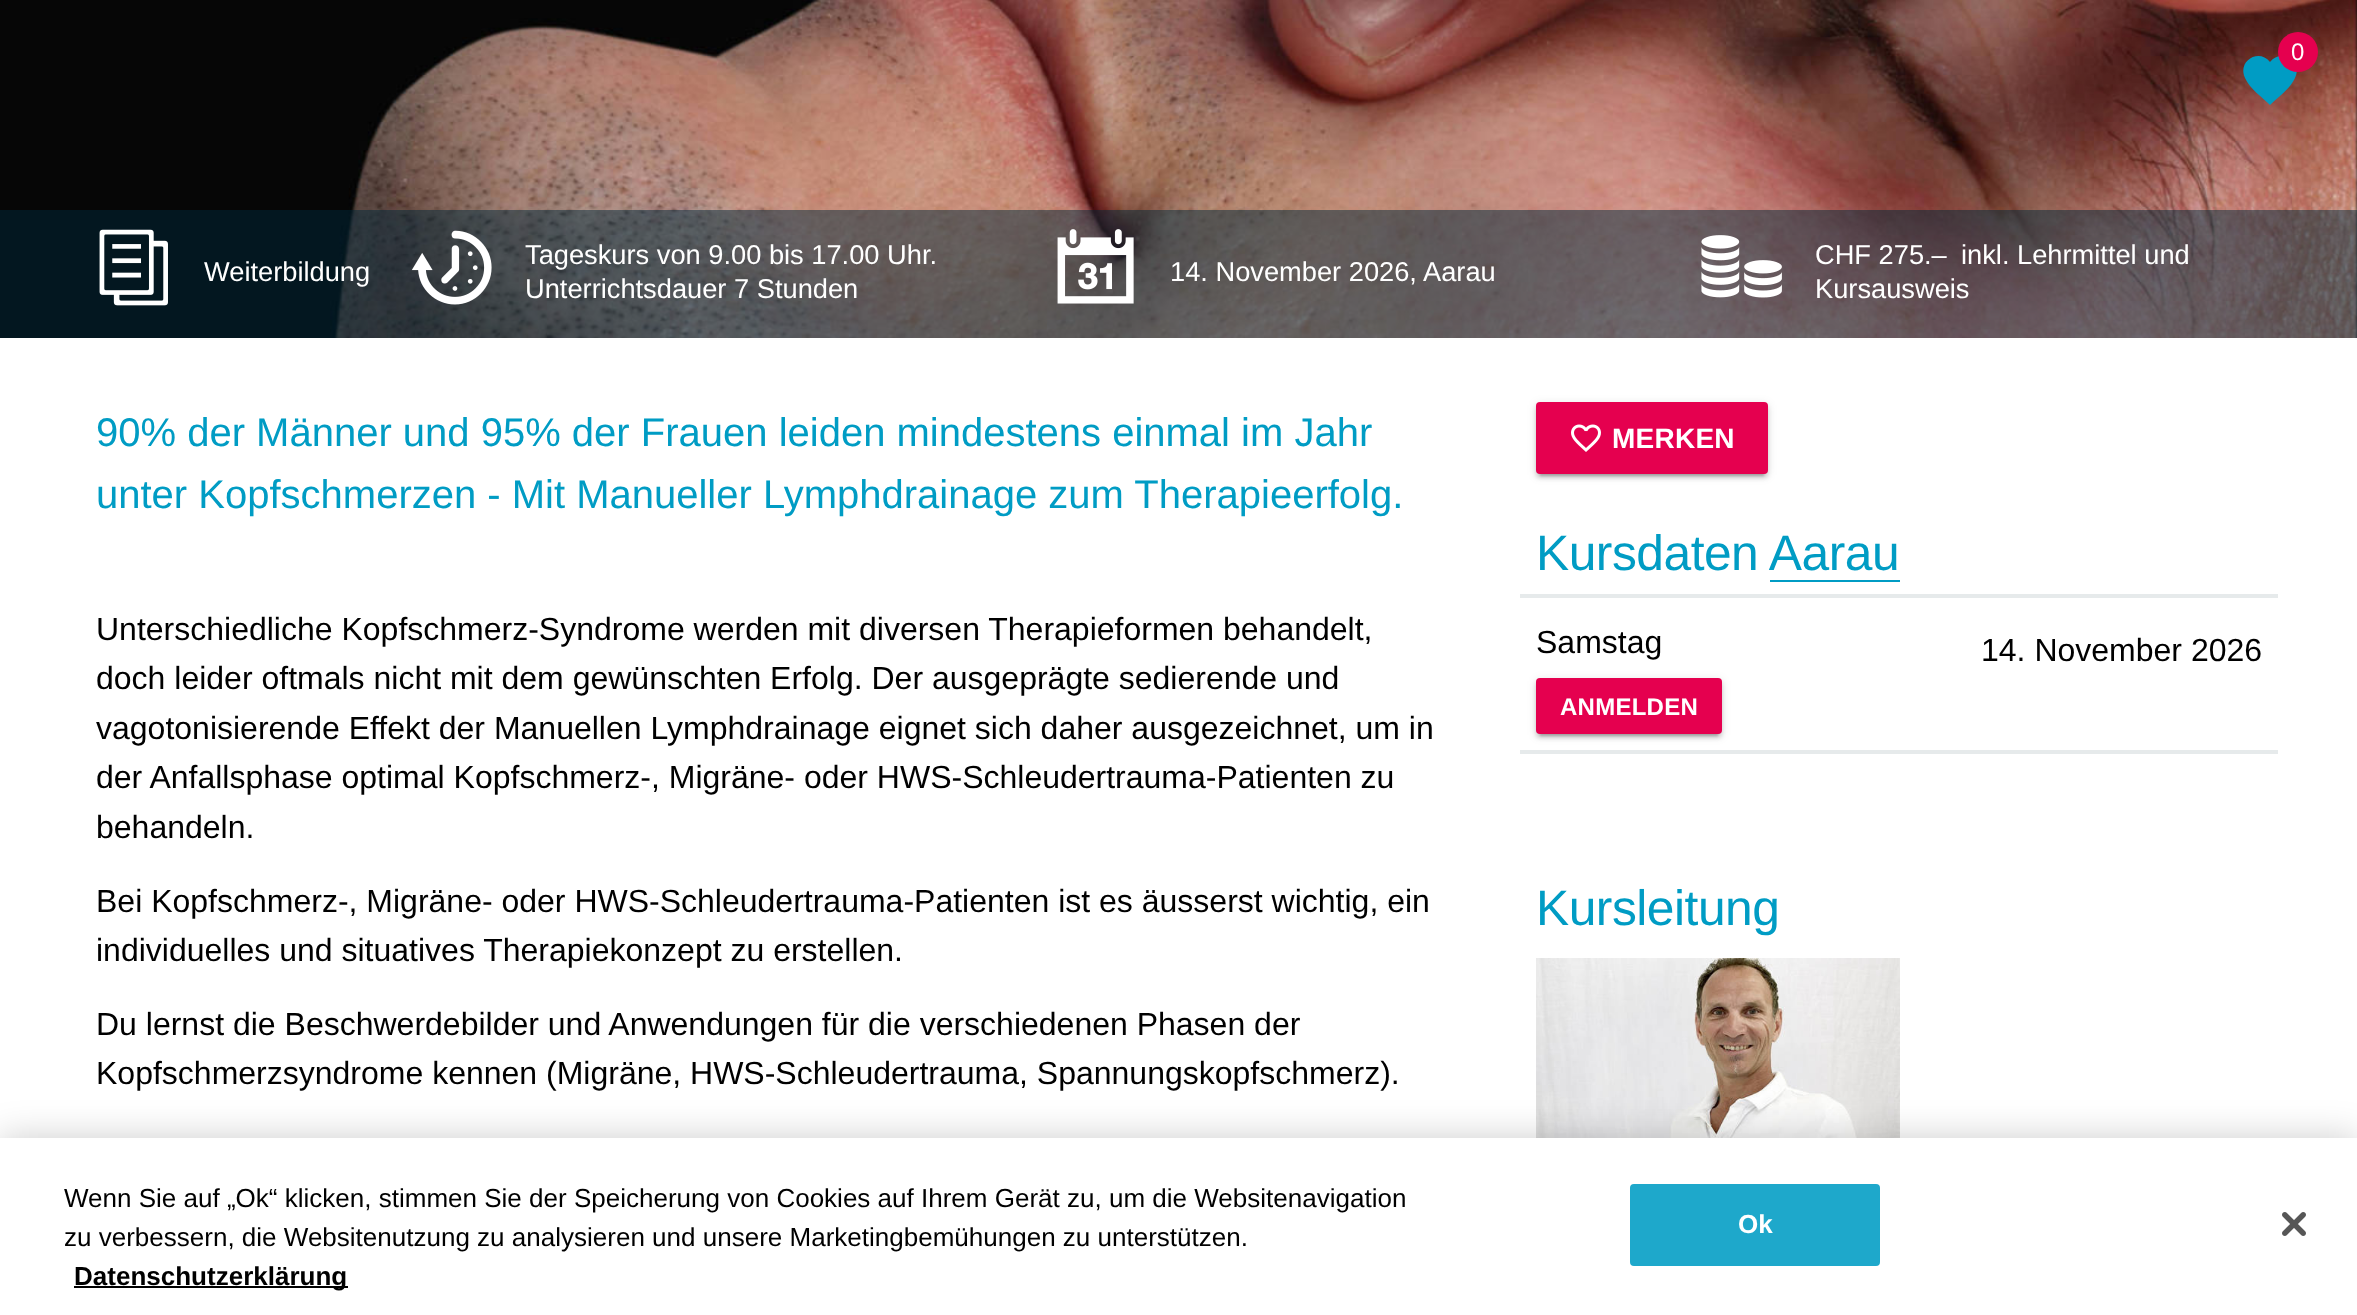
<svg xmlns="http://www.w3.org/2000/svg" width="2357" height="1315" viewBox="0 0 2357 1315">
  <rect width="100%" height="100%" fill="rgb(255,255,255)"/>
  <image x="0" y="0" width="2357" height="338" href="pic1.png"/>
  <path d="M2270 105C2262 97 2250 89 2245 78C2237 61 2259 48 2270 62C2281 48 2303 61 2295 78C2290 89 2278 97 2270 105Z" fill="rgb(0,156,196)"/>
  <circle cx="2298" cy="52" r="20" fill="rgb(229,0,79)"/>
  <text x="2291" y="60" font-family="Liberation Sans" font-size="24" letter-spacing="0.25" fill="rgb(255,255,255)">0</text>
  <rect x="0" y="210" width="2357" height="128" fill="rgba(0,40,58,0.5)"/>
  <image x="99" y="229" width="69" height="77" href="pic2.png"/>
  <text x="204" y="281" font-family="Liberation Sans" font-size="27.25" fill="rgb(255,255,255)">Weiterbildung</text>
  <image x="411" y="230" width="81" height="75" href="pic3.png"/>
  <g font-family="Liberation Sans" font-size="27.25" fill="rgb(255,255,255)">
    <text>
      <tspan x="525" y="264">Tageskurs von 9.00 bis 17.00 Uhr.</tspan>
      <tspan x="525" y="298">Unterrichtsdauer 7 Stunden</tspan>
    </text>
  </g>
  <image x="1057" y="229" width="77" height="75" href="pic4.png"/>
  <text x="1170" y="281" font-family="Liberation Sans" font-size="27.25" fill="rgb(255,255,255)">14. November 2026, Aarau</text>
  <image x="1701" y="235" width="81" height="63" href="pic5.png"/>
  <g font-family="Liberation Sans" font-size="27.25" fill="rgb(255,255,255)">
    <text x="1815" y="264">CHF 275.–</text>
    <text x="1961" y="264">inkl. Lehrmittel und</text>
    <text x="1815" y="298">Kursausweis</text>
  </g>
  <g font-family="Liberation Sans" font-size="40" fill="rgb(0,156,196)">
    <text>
      <tspan x="96" y="446">90% der Männer und 95% der Frauen leiden mindestens einmal im Jahr</tspan>
      <tspan x="96" y="508">unter Kopfschmerzen - Mit Manueller Lymphdrainage zum Therapieerfolg.</tspan>
    </text>
  </g>
  <g font-family="Liberation Sans" font-size="32" fill="rgb(0,0,0)">
    <text>
      <tspan x="96" y="640">Unterschiedliche Kopfschmerz-Syndrome werden mit diversen Therapieformen behandelt,</tspan>
      <tspan x="96" y="689">doch leider oftmals nicht mit dem gewünschten Erfolg. Der ausgeprägte sedierende und</tspan>
      <tspan x="96" y="739">vagotonisierende Effekt der Manuellen Lymphdrainage eignet sich daher ausgezeichnet, um in</tspan>
      <tspan x="96" y="788">der Anfallsphase optimal Kopfschmerz-, Migräne- oder HWS-Schleudertrauma-Patienten zu</tspan>
      <tspan x="96" y="838">behandeln.</tspan>
    </text>
    <text>
      <tspan x="96" y="912">Bei Kopfschmerz-, Migräne- oder HWS-Schleudertrauma-Patienten ist es äusserst wichtig, ein</tspan>
      <tspan x="96" y="961">individuelles und situatives Therapiekonzept zu erstellen.</tspan>
    </text>
    <text>
      <tspan x="96" y="1035">Du lernst die Beschwerdebilder und Anwendungen für die verschiedenen Phasen der</tspan>
      <tspan x="96" y="1084">Kopfschmerzsyndrome kennen (Migräne, HWS-Schleudertrauma, Spannungskopfschmerz).</tspan>
    </text>
  </g>
  <rect x="1536" y="404" width="232" height="72" rx="4" fill="rgba(0,0,0,0.12)" filter="blur(5px)"/>
  <rect x="1536" y="406" width="232" height="72" rx="4" fill="rgba(0,0,0,0.14)" filter="blur(2px)"/>
  <rect x="1540" y="412" width="224" height="64" fill="rgba(0,0,0,0.2)" filter="blur(1px)"/>
  <rect x="1536" y="402" width="232" height="72" rx="4" fill="rgb(229,0,79)"/>
  <image x="1571" y="424" width="30" height="28" href="pic6.png"/>
  <text x="1612" y="448" font-family="Liberation Sans" font-size="28" font-weight="bold" letter-spacing="0.25" fill="rgb(255,255,255)">MERKEN</text>
  <text x="1536" y="570" font-family="Liberation Sans" font-size="49.75" letter-spacing="-0.5" fill="rgb(0,156,196)">Kursdaten Aarau</text>
  <rect x="1770" y="580" width="130" height="2" fill="rgb(0,156,196)"/>
  <rect x="1520" y="594" width="758" height="4" fill="rgb(230,234,235)"/>
  <rect x="1520" y="750" width="758" height="4" fill="rgb(230,234,235)"/>
  <g font-family="Liberation Sans" font-size="32" fill="rgb(0,0,0)">
    <text x="1536" y="653">Samstag</text>
    <text x="1981" y="661">14. November 2026</text>
  </g>
  <rect x="1536" y="680" width="186" height="56" rx="4" fill="rgba(0,0,0,0.12)" filter="blur(5px)"/>
  <rect x="1536" y="682" width="186" height="56" rx="4" fill="rgba(0,0,0,0.14)" filter="blur(2px)"/>
  <rect x="1540" y="688" width="178" height="48" fill="rgba(0,0,0,0.2)" filter="blur(1px)"/>
  <rect x="1536" y="678" width="186" height="56" rx="4" fill="rgb(229,0,79)"/>
  <text x="1560" y="715" font-family="Liberation Sans" font-size="24" font-weight="bold" letter-spacing="0.25" fill="rgb(255,255,255)">ANMELDEN</text>
  <text x="1536" y="925" font-family="Liberation Sans" font-size="49.75" letter-spacing="-0.5" fill="rgb(0,156,196)">Kursleitung</text>
  <image x="1536" y="958" width="364" height="180" href="pic7.png"/>
  <rect x="0" y="1138" width="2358" height="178" fill="rgba(0,0,0,0.2)" filter="blur(18px)"/>
  <rect x="0" y="1138" width="2357" height="177" fill="rgb(255,255,255)"/>
  <g font-family="Liberation Sans" font-size="26.02" fill="rgb(0,0,0)">
    <text>
      <tspan x="64" y="1207">Wenn Sie auf „Ok“ klicken, stimmen Sie der Speicherung von Cookies auf Ihrem Gerät zu, um die Websitenavigation</tspan>
      <tspan x="64" y="1246">zu verbessern, die Websitenutzung zu analysieren und unsere Marketingbemühungen zu unterstützen.</tspan>
    </text>
  </g>
  <rect x="74" y="1286" width="274" height="2" fill="rgb(0,0,0)"/>
  <text x="74" y="1285" font-family="Liberation Sans" font-size="26.02" font-weight="bold" fill="rgb(0,0,0)">Datenschutzerklärung</text>
  <rect x="1631" y="1185" width="248" height="80" rx="3" fill="rgb(30,168,203)" stroke="rgb(30,168,203)" stroke-width="2"/>
  <text x="1738" y="1233" font-family="Liberation Sans" font-size="26.02" font-weight="bold" fill="rgb(255,255,255)">Ok</text>
  <image x="2282" y="1212" width="24" height="24" href="pic8.png"/>
</svg>
